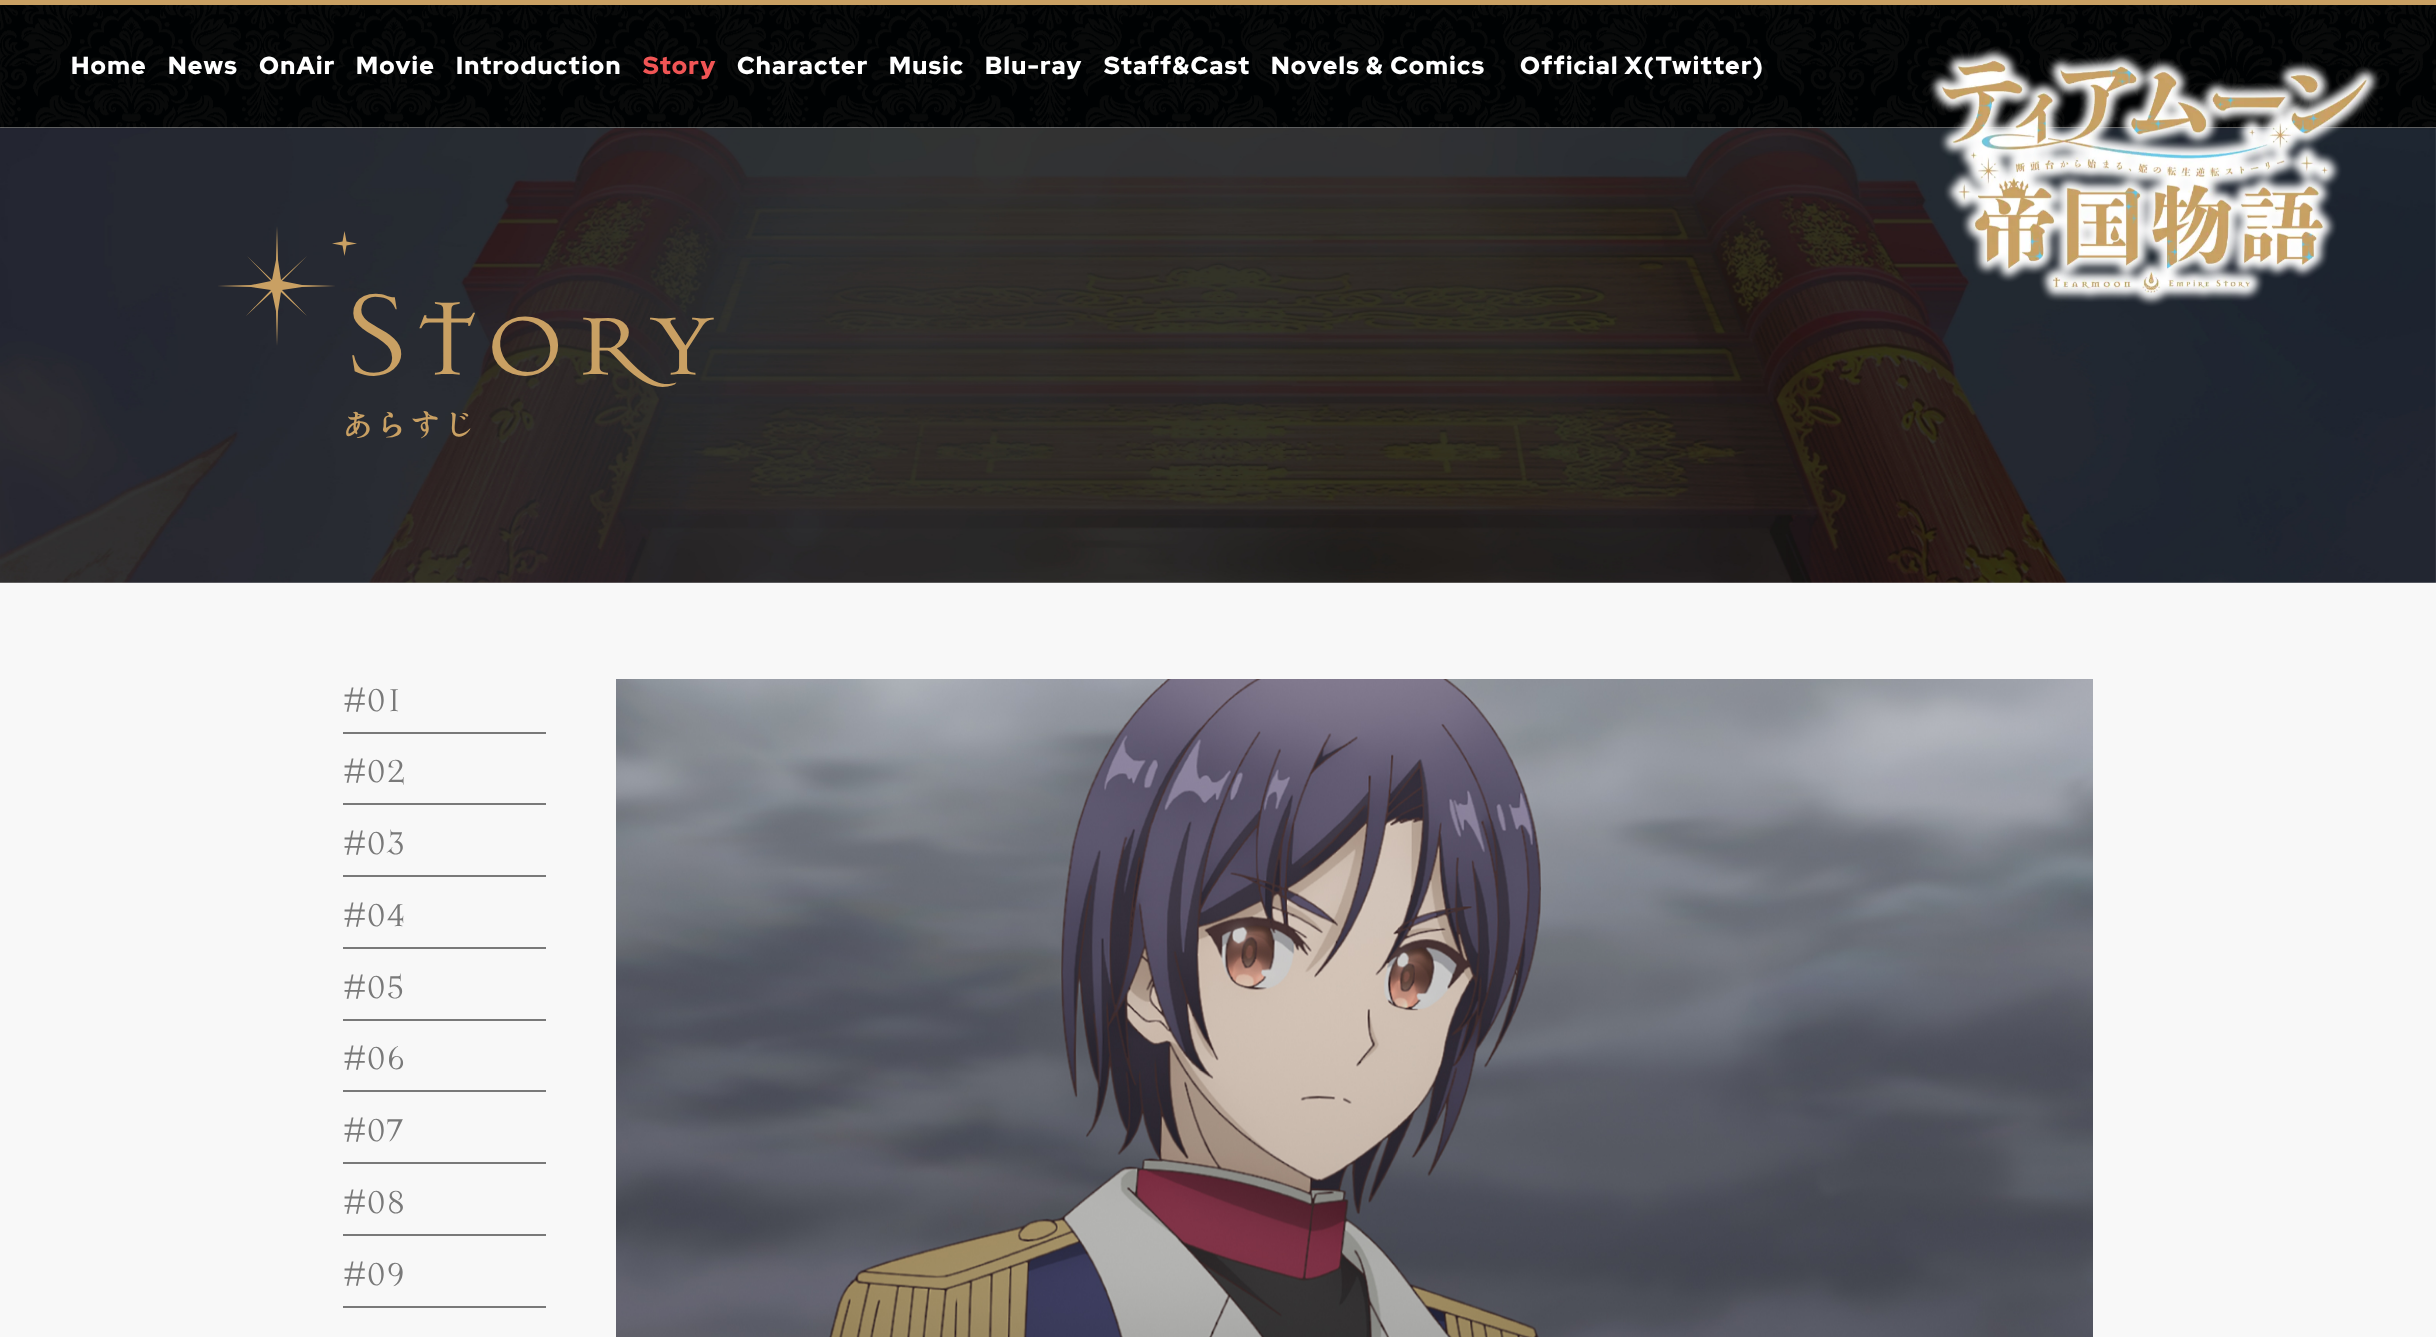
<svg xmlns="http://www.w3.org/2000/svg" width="2436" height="1337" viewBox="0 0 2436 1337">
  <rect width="100%" height="100%" fill="rgb(248,248,248)"/>
  <rect x="0" y="0" width="2436" height="5" fill="rgb(201,160,99)"/>
  <image x="0" y="5" width="2436" height="123" href="pic1.png"/>
  <g font-family="Red Hat Display" font-size="24.5" font-weight="900" letter-spacing="1.25" fill="rgb(255,255,255)">
    <text x="71" y="74">Home</text>
    <text x="168" y="74">News</text>
    <text x="259" y="74">OnAir</text>
    <text x="356" y="74">Movie</text>
    <text x="456" y="74">Introduction</text>
  </g>
  <text x="643" y="74" font-family="Red Hat Display" font-size="24.5" font-weight="900" letter-spacing="1.25" fill="rgb(240,85,85)">Story</text>
  <g font-family="Red Hat Display" font-size="24.5" font-weight="900" letter-spacing="1.25" fill="rgb(255,255,255)">
    <text x="737" y="74">Character</text>
    <text x="889" y="74">Music</text>
    <text x="985" y="74">Blu-ray</text>
    <text x="1104" y="74">Staff&amp;Cast</text>
    <text x="1271" y="74">Novels &amp; Comics</text>
    <text x="1520" y="74">Official X(Twitter)</text>
  </g>
  <image x="0" y="128" width="2436" height="455" href="pic3.png"/>
  <image x="1928" y="47" width="452" height="260" href="pic2.png"/>
  <path d="M344.5 231L342.5 241.5L332 243.5L342.5 245.5L344.5 256L346.5 245.5L357 243.5L346.5 241.5Z" fill="rgb(201,160,99)"/>
  <path d="M277 226L276 260L272 280L247 256L271 281L251 285L217 286L251 287L271 290L246 316L272 292L276 311L277 346L278 311L281 292L307 316L282 290L302 287L336 286L302 285L282 281L307 256L281 280L278 260Z" fill="rgb(201,160,99)"/>
  <text x="343" y="374" font-family="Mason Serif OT" font-size="126" letter-spacing="12.5" fill="rgb(201,160,99)">Story</text>
  <text x="343" y="436" font-family="Shippori Antique" font-size="29.75" letter-spacing="4" fill="rgb(201,160,99)">あらすじ</text>
  <rect x="343" y="732" width="203" height="2" fill="rgb(121,121,121)"/>
  <text x="343" y="711" font-family="Mason Serif OT" font-size="35" letter-spacing="-1" fill="rgb(121,121,121)">#01</text>
  <rect x="343" y="803" width="203" height="2" fill="rgb(121,121,121)"/>
  <text x="343" y="782" font-family="Mason Serif OT" font-size="35" letter-spacing="-1" fill="rgb(121,121,121)">#02</text>
  <rect x="343" y="875" width="203" height="2" fill="rgb(121,121,121)"/>
  <text x="343" y="854" font-family="Mason Serif OT" font-size="35" letter-spacing="-1" fill="rgb(121,121,121)">#03</text>
  <rect x="343" y="947" width="203" height="2" fill="rgb(121,121,121)"/>
  <text x="343" y="926" font-family="Mason Serif OT" font-size="35" letter-spacing="-1" fill="rgb(121,121,121)">#04</text>
  <rect x="343" y="1019" width="203" height="2" fill="rgb(121,121,121)"/>
  <text x="343" y="998" font-family="Mason Serif OT" font-size="35" letter-spacing="-1" fill="rgb(121,121,121)">#05</text>
  <rect x="343" y="1090" width="203" height="2" fill="rgb(121,121,121)"/>
  <text x="343" y="1069" font-family="Mason Serif OT" font-size="35" letter-spacing="-1" fill="rgb(121,121,121)">#06</text>
  <rect x="343" y="1162" width="203" height="2" fill="rgb(121,121,121)"/>
  <text x="343" y="1141" font-family="Mason Serif OT" font-size="35" letter-spacing="-1" fill="rgb(121,121,121)">#07</text>
  <rect x="343" y="1234" width="203" height="2" fill="rgb(121,121,121)"/>
  <text x="343" y="1213" font-family="Mason Serif OT" font-size="35" letter-spacing="-1" fill="rgb(121,121,121)">#08</text>
  <rect x="343" y="1306" width="203" height="2" fill="rgb(121,121,121)"/>
  <text x="343" y="1285" font-family="Mason Serif OT" font-size="35" letter-spacing="-1" fill="rgb(121,121,121)">#09</text>
  <image x="616" y="679" width="1477" height="658" href="pic4.png"/>
</svg>
